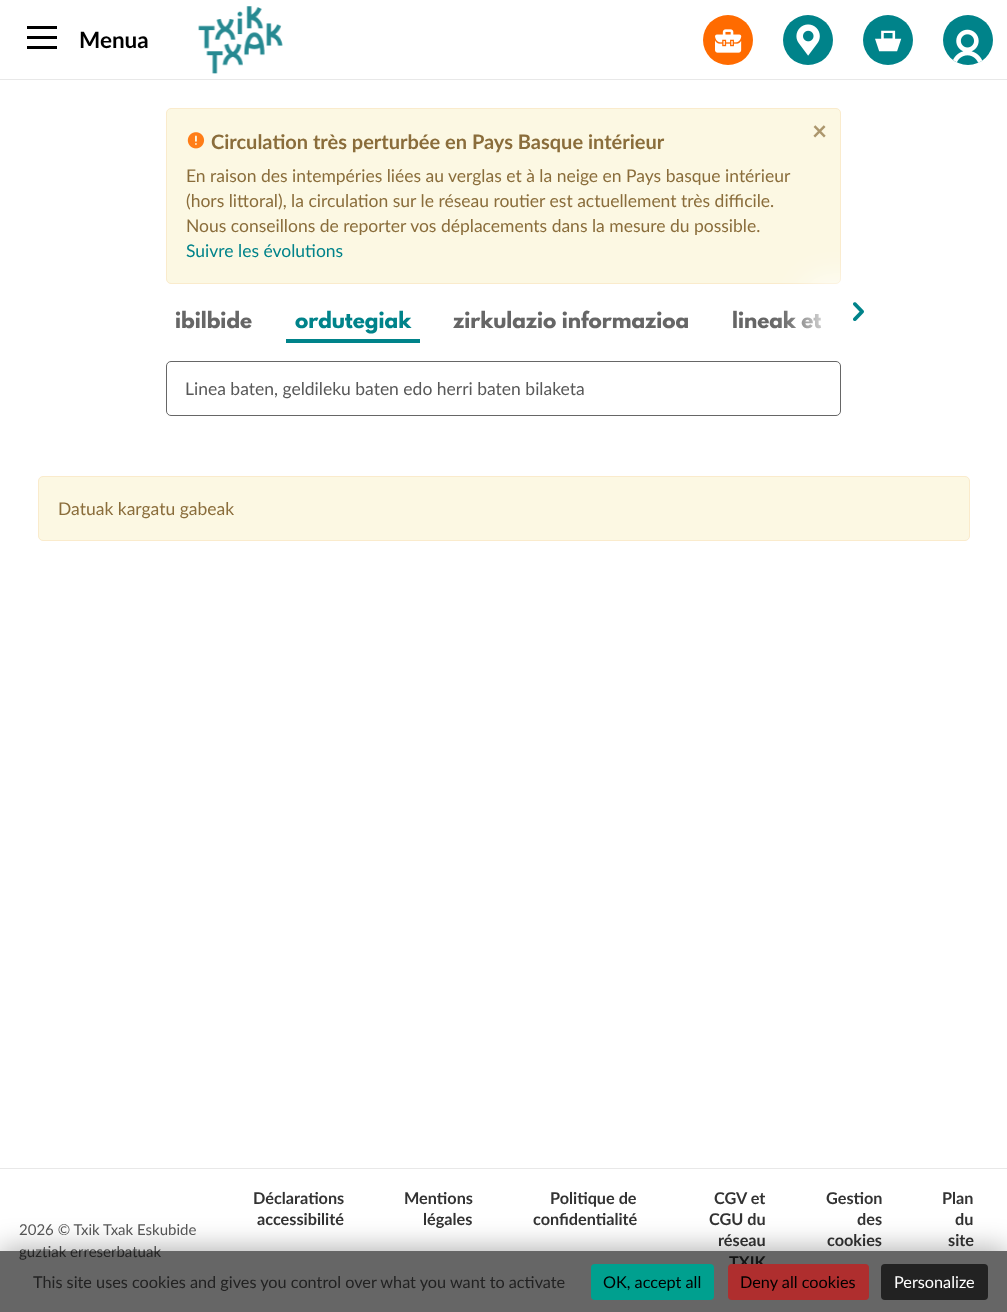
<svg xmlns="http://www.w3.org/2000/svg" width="1007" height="1312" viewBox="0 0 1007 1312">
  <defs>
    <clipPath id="clip1"><path d="M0 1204H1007V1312H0ZM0 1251H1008V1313H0Z" clip-rule="evenodd"/></clipPath>
  </defs>
  <rect width="100%" height="100%" fill="rgb(255,255,255)"/>
  <rect x="0" y="79" width="1007" height="1" fill="rgb(232,232,232)"/>
  <rect x="27" y="26" width="30" height="3" fill="rgb(0,0,0)"/>
  <rect x="27" y="36" width="30" height="3" fill="rgb(0,0,0)"/>
  <rect x="27" y="46" width="30" height="3" fill="rgb(0,0,0)"/>
  <text x="79" y="48" font-family="Lato" font-size="22.5" font-weight="bold" fill="rgb(0,0,0)">Menua</text>
  <image x="198" y="6" width="85" height="68" href="pic1.png"/>
  <circle cx="728" cy="40" r="25" fill="rgb(255,107,0)"/>
  <image x="715" y="29" width="27" height="24" href="pic2.png"/>
  <circle cx="808" cy="40" r="25" fill="rgb(0,131,138)"/>
  <image x="796" y="24" width="24" height="32" href="pic3.png"/>
  <circle cx="888" cy="40" r="25" fill="rgb(0,131,138)"/>
  <image x="875" y="30" width="27" height="22" href="pic4.png"/>
  <circle cx="968" cy="40" r="25" fill="rgb(0,131,138)"/>
  <image x="953" y="29" width="30" height="34" href="pic5.png"/>
  <rect x="166.5" y="108.5" width="674" height="175" rx="4.5" fill="rgb(252,248,227)" stroke="rgb(250,235,204)"/>
  <text x="812" y="140" font-family="Lato" font-size="26" font-weight="bold" fill="rgb(172,151,109)">×</text>
  <image x="187" y="132" width="18" height="17" href="pic6.png"/>
  <text x="211" y="149" font-family="Lato" font-size="20" font-weight="bold" fill="rgb(138,109,59)">Circulation très perturbée en Pays Basque intérieur</text>
  <g font-family="Lato" font-size="17.5" fill="rgb(138,109,59)">
    <text>
      <tspan x="186" y="182">En raison des intempéries liées au verglas et à la neige en Pays basque intérieur</tspan>
      <tspan x="186" y="207">(hors littoral), la circulation sur le réseau routier est actuellement très difficile.</tspan>
      <tspan x="186" y="232">Nous conseillons de reporter vos déplacements dans la mesure du possible.</tspan>
    </text>
  </g>
  <text x="186" y="257" font-family="Lato" font-size="17.5" fill="rgb(0,131,138)">Suivre les évolutions</text>
  <text x="175" y="328" font-family="League Spartan" font-size="20" font-weight="bold" fill="rgb(102,102,102)">ibilbide</text>
  <rect x="286" y="339" width="134" height="4" fill="rgb(0,131,138)"/>
  <text x="295" y="328" font-family="League Spartan" font-size="20" font-weight="bold" fill="rgb(0,131,138)">ordutegiak</text>
  <g font-family="League Spartan" font-size="20" font-weight="bold" fill="rgb(102,102,102)">
    <text x="453" y="328">zirkulazio informazioa</text>
    <text x="732" y="328">lineak et</text>
  </g>
  <rect x="809" y="284" width="55" height="65" fill="rgb(255,255,255)" filter="blur(19px)"/>
  <image x="853" y="302" width="11" height="19" href="pic7.png"/>
  <rect x="166.5" y="361.5" width="674" height="54" rx="4.5" fill="none" stroke="rgb(102,102,102)"/>
  <text x="185" y="395" font-family="Lato" font-size="17.5" fill="rgb(88,88,88)">Linea baten, geldileku baten edo herri baten bilaketa</text>
  <rect x="38.5" y="476.5" width="931" height="64" rx="4.5" fill="rgb(252,248,227)" stroke="rgb(250,235,204)"/>
  <text x="58" y="515" font-family="Lato" font-size="17.5" fill="rgb(138,109,59)">Datuak kargatu gabeak</text>
  <rect x="0" y="1168" width="1007" height="1" fill="rgb(232,232,232)"/>
  <g font-family="Lato" font-size="15" fill="rgb(88,88,88)">
    <text>
      <tspan x="19" y="1235">2026 © Txik Txak Eskubide</tspan>
      <tspan x="19" y="1257">guztiak erreserbatuak</tspan>
    </text>
  </g>
  <g font-family="Lato" font-size="16.25" font-weight="bold" fill="rgb(51,51,51)">
    <text x="253" y="1204">Déclarations</text>
    <text x="257" y="1225">accessibilité</text>
    <text x="404" y="1204">Mentions</text>
    <text x="423" y="1225">légales</text>
    <text x="550" y="1204">Politique de</text>
    <text x="533" y="1225">confidentialité</text>
    <text x="714" y="1204">CGV et</text>
    <text x="709" y="1225">CGU du</text>
    <text x="718" y="1246">réseau</text>
    <text x="729" y="1268">TXIK</text>
    <text x="826" y="1204">Gestion</text>
    <text x="857" y="1225">des</text>
    <text x="827" y="1246">cookies</text>
    <text x="942" y="1204">Plan</text>
    <text x="955" y="1225">du</text>
    <text x="948" y="1246">site</text>
  </g>
  <g clip-path="url(#clip1)">
    <rect x="0" y="1249" width="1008" height="61" fill="rgba(0,0,0,0.32)" filter="blur(14.5px)"/>
  </g>
  <rect x="0" y="1251" width="1007" height="61" fill="rgba(0,0,0,0.6)"/>
  <text x="33" y="1288" font-family="Lato" font-size="16.25" fill="rgb(34,34,34)">This site uses cookies and gives you control over what you want to activate</text>
  <rect x="591" y="1264" width="123" height="36" rx="4" fill="rgb(0,160,143)"/>
  <text x="603" y="1288" font-family="Lato" font-size="16.25" fill="rgb(0,0,0)">OK, accept all</text>
  <rect x="728" y="1264" width="141" height="36" rx="4" fill="rgb(175,46,46)"/>
  <text x="740" y="1288" font-family="Lato" font-size="16.25" fill="rgb(0,0,0)">Deny all cookies</text>
  <rect x="881" y="1264" width="107" height="36" rx="4" fill="rgb(34,34,34)"/>
  <text x="894" y="1288" font-family="Lato" font-size="16.25" fill="rgb(255,255,255)">Personalize</text>
</svg>
